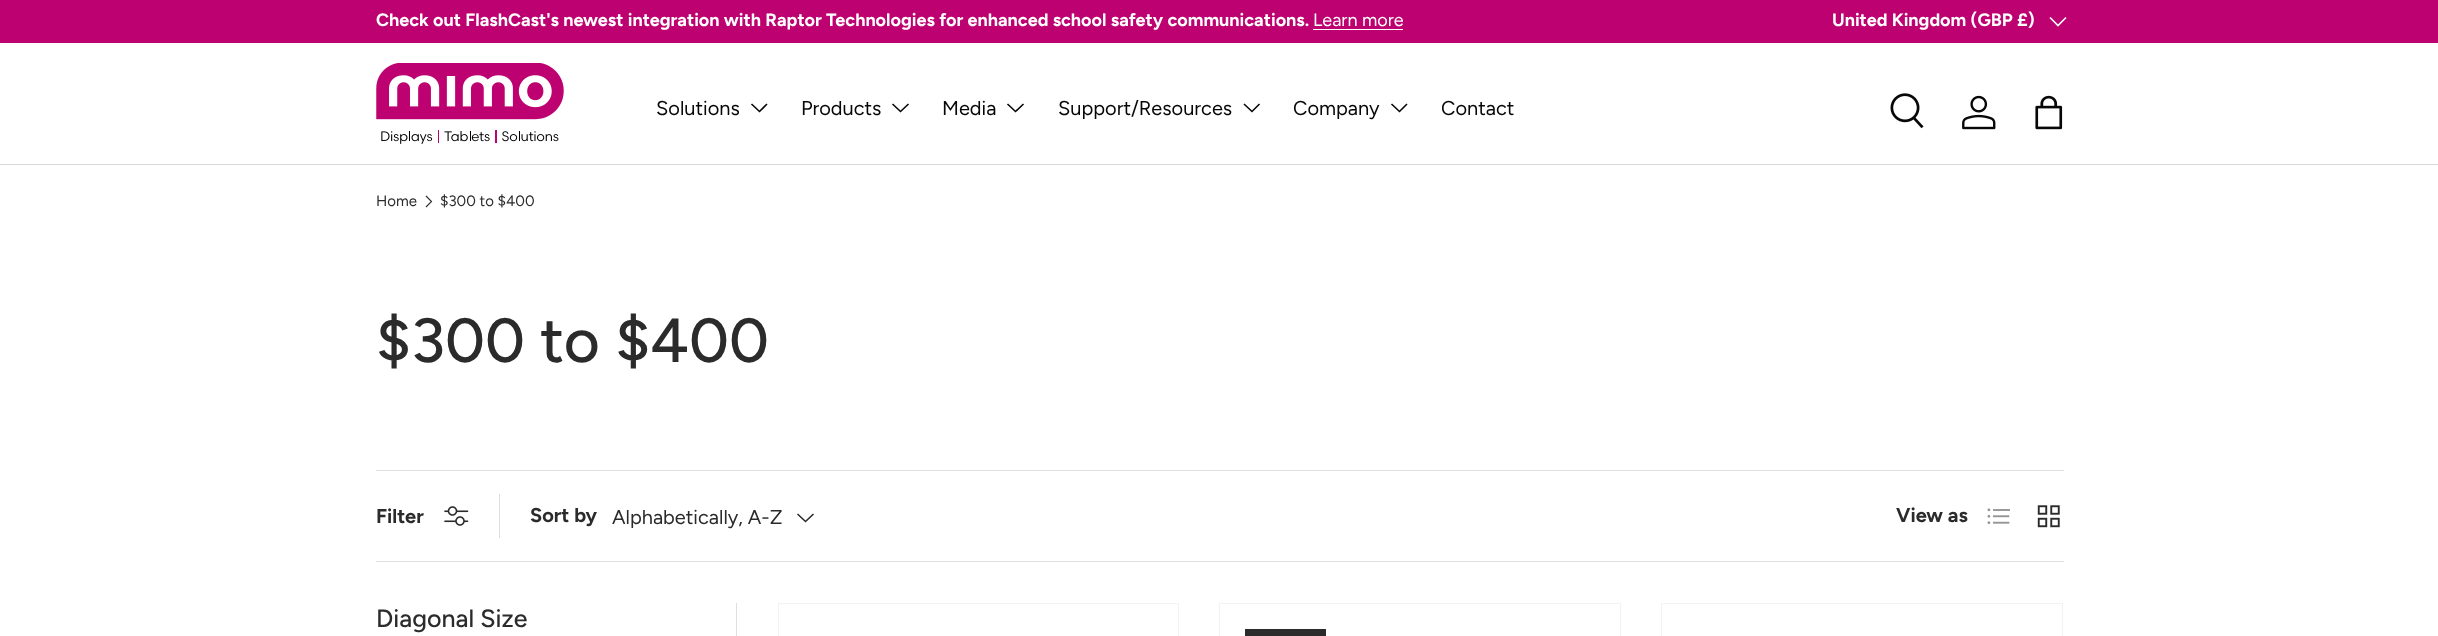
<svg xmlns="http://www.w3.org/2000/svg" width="2438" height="636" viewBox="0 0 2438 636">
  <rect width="100%" height="100%" fill="rgb(255,255,255)"/>
  <rect x="0" y="0" width="2438" height="43" fill="rgb(190,1,112)"/>
  <text x="376" y="26" font-family="Figtree" font-size="18" font-weight="bold" fill="rgb(255,255,255)">Check out FlashCast's newest integration with Raptor Technologies for enhanced school safety communications.</text>
  <text x="1313" y="26" font-family="Figtree" font-size="18" fill="rgb(255,255,255)">Learn more</text>
  <rect x="1313" y="29" width="90" height="1" fill="rgb(255,255,255)"/>
  <text x="1832" y="26" font-family="Figtree" font-size="18" font-weight="bold" fill="rgb(255,255,255)">United Kingdom (GBP £)</text>
  <path d="M2066 17.5L2058 25.5L2050 17.5" fill="none" stroke="rgb(255,255,255)" stroke-width="1.6"/>
  <rect x="0" y="164" width="2438" height="1" fill="rgb(218,218,218)"/>
  <image x="376" y="63" width="188" height="81" href="pic1.png"/>
  <text x="656" y="115" font-family="Figtree" font-size="20" fill="rgb(7,7,7)">Solutions</text>
  <path d="M767 104L759.5 111.5L751.5 104" fill="none" stroke="rgb(7,7,7)" stroke-width="1.6"/>
  <text x="801" y="115" font-family="Figtree" font-size="20" fill="rgb(7,7,7)">Products</text>
  <path d="M908.5 104L900.5 111.5L892.5 104" fill="none" stroke="rgb(7,7,7)" stroke-width="1.6"/>
  <text x="942" y="115" font-family="Figtree" font-size="20" fill="rgb(7,7,7)">Media</text>
  <path d="M1023.5 104L1015.5 111.5L1007.5 104" fill="none" stroke="rgb(7,7,7)" stroke-width="1.6"/>
  <text x="1058" y="115" font-family="Figtree" font-size="20" fill="rgb(7,7,7)">Support/Resources</text>
  <path d="M1259.5 104L1252 111.5L1244 104" fill="none" stroke="rgb(7,7,7)" stroke-width="1.6"/>
  <text x="1293" y="115" font-family="Figtree" font-size="20" fill="rgb(7,7,7)">Company</text>
  <path d="M1407 104L1399.5 111.5L1391.5 104" fill="none" stroke="rgb(7,7,7)" stroke-width="1.6"/>
  <text x="1441" y="115" font-family="Figtree" font-size="20" fill="rgb(7,7,7)">Contact</text>
  <image x="1890" y="93" width="34" height="36" href="pic2.png"/>
  <image x="1962" y="95" width="34" height="35" href="pic3.png"/>
  <image x="2035" y="95" width="28" height="35" href="pic4.png"/>
  <text x="376" y="206" font-family="Figtree" font-size="15" fill="rgb(42,43,42)">Home</text>
  <path d="M426 196L431.5 201.5L426 207" fill="none" stroke="rgb(42,43,42)" stroke-width="1.1"/>
  <text x="440" y="206" font-family="Figtree" font-size="15" fill="rgb(42,43,42)">$300 to $400</text>
  <text x="376" y="362" font-family="Figtree" font-size="62.25" font-weight="500" fill="rgb(42,43,42)">$300 to $400</text>
  <rect x="376" y="470" width="1688" height="1" fill="rgb(223,223,223)"/>
  <rect x="376" y="561" width="1688" height="1" fill="rgb(223,223,223)"/>
  <text x="376" y="523" font-family="Figtree" font-size="20" font-weight="bold" fill="rgb(42,43,42)">Filter</text>
  <image x="444" y="506" width="25" height="20" href="pic5.png"/>
  <rect x="499" y="494" width="1" height="44" fill="rgb(223,223,223)"/>
  <text x="530" y="522" font-family="Figtree" font-size="20" font-weight="bold" fill="rgb(42,43,42)">Sort by</text>
  <text x="612" y="524" font-family="Figtree" font-size="20" fill="rgb(42,43,42)">Alphabetically, A-Z</text>
  <path d="M813.5 514L805.5 521.5L797.5 514" fill="none" stroke="rgb(42,43,42)" stroke-width="1.6"/>
  <text x="1896" y="522" font-family="Figtree" font-size="20" font-weight="bold" fill="rgb(42,43,42)">View as</text>
  <image x="1987" y="508" width="23" height="16" href="pic6.png"/>
  <image x="2037" y="505" width="23" height="23" href="pic7.png"/>
  <rect x="736" y="603" width="1" height="33" fill="rgb(223,223,223)"/>
  <text x="376" y="627" font-family="Figtree" font-size="25" font-weight="500" fill="rgb(42,43,42)">Diagonal Size</text>
  <rect x="778.5" y="603.5" width="400" height="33" fill="none" stroke="rgb(242,242,242)"/>
  <rect x="1219.5" y="603.5" width="401" height="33" fill="none" stroke="rgb(242,242,242)"/>
  <rect x="1245" y="629" width="81" height="7" fill="rgb(42,43,42)"/>
  <rect x="1661.5" y="603.5" width="401" height="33" fill="none" stroke="rgb(242,242,242)"/>
</svg>
